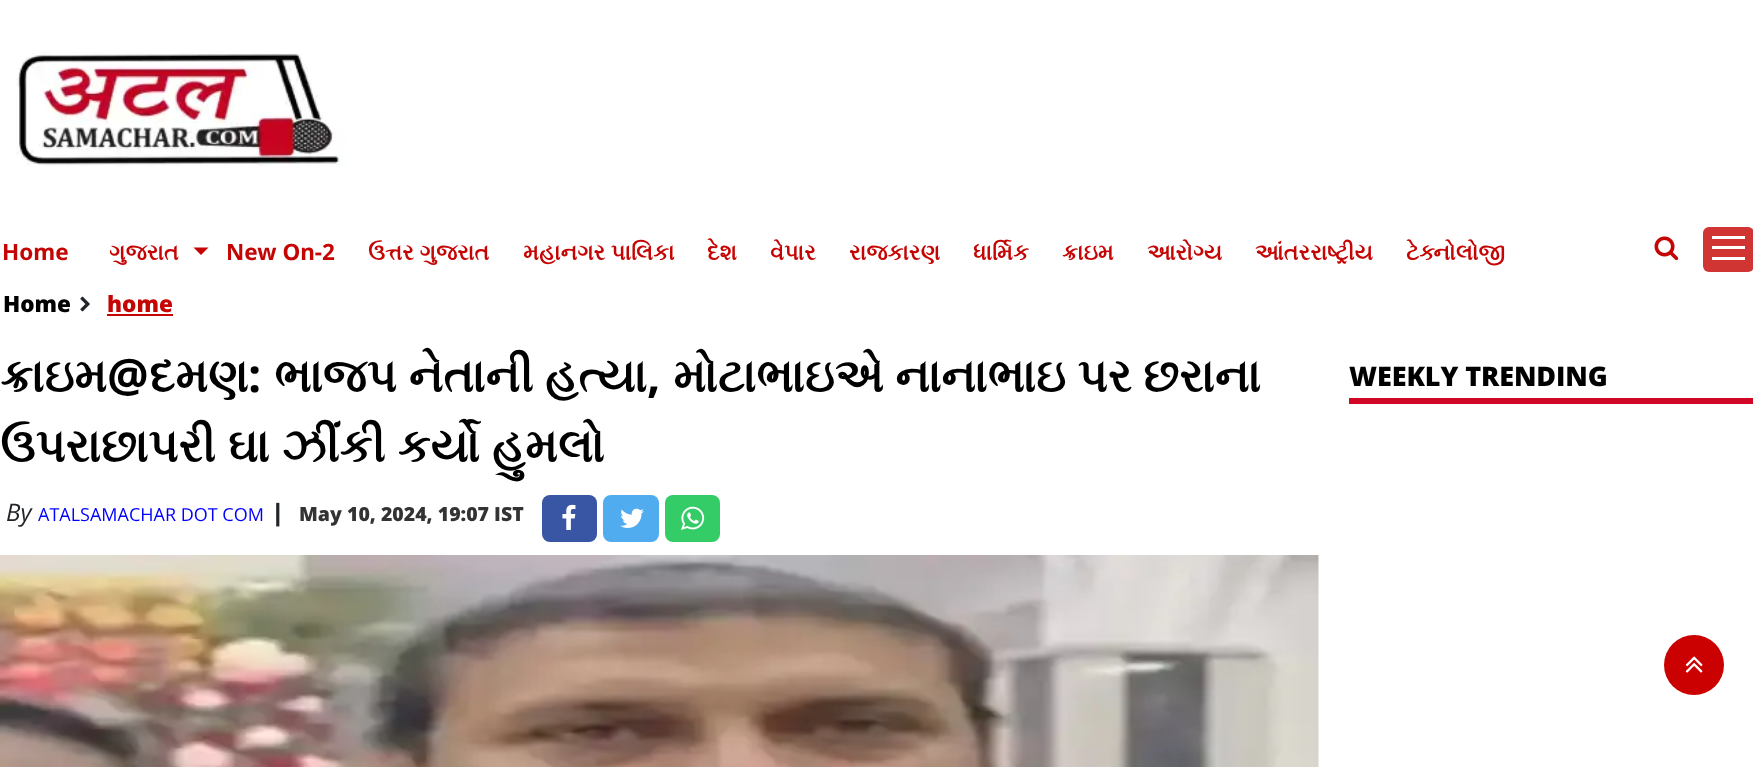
<svg xmlns="http://www.w3.org/2000/svg" width="1753" height="767" viewBox="0 0 1753 767">
  <rect width="100%" height="100%" fill="rgb(255,255,255)"/>
  <image x="16" y="52" width="333" height="114" href="pic1.png"/>
  <text x="2" y="260" font-family="Noto Sans" font-size="22.5" font-weight="bold" fill="rgb(197,5,4)">Home</text>
  <text x="109" y="260" font-family="FreeSerif" font-size="22.5" font-weight="bold" fill="rgb(197,5,4)">ગુજરાત</text>
  <path d="M193.5 247.5H208.5L201 255Z" fill="rgb(197,5,4)"/>
  <text x="226" y="260" font-family="Noto Sans" font-size="22.5" font-weight="bold" fill="rgb(197,5,4)">New On-2</text>
  <g font-family="FreeSerif" font-size="22.5" font-weight="bold" fill="rgb(197,5,4)">
    <text x="368" y="260">ઉત્તર ગુજરાત</text>
    <text x="523" y="260">મહાનગર પાલિકા</text>
    <text x="707" y="260">દેશ</text>
    <text x="770" y="260">વેપાર</text>
    <text x="849" y="260">રાજકારણ</text>
    <text x="973" y="260">ધાર્મિક</text>
    <text x="1062" y="260">ક્રાઇમ</text>
    <text x="1147" y="260">આરોગ્ય</text>
    <text x="1255" y="260">આંતરરાષ્ટ્રીય</text>
    <text x="1406" y="260">ટેક્નોલોજી</text>
  </g>
  <image x="1654" y="236" width="25" height="25" href="pic2.png"/>
  <rect x="1703" y="227" width="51" height="45" rx="6" fill="rgb(208,53,52)"/>
  <rect x="1712" y="246" width="33" height="3" fill="rgb(255,255,255)"/>
  <rect x="1712" y="236" width="33" height="3" fill="rgb(255,255,255)"/>
  <rect x="1712" y="257" width="33" height="3" fill="rgb(255,255,255)"/>
  <text x="3" y="312" font-family="Open Sans" font-size="22.5" font-weight="800" fill="rgb(0,0,0)">Home</text>
  <image x="80" y="296" width="10" height="16" href="pic3.png"/>
  <text x="107" y="312" font-family="Open Sans" font-size="22.5" font-weight="800" fill="rgb(197,5,4)">home</text>
  <rect x="107" y="314" width="66" height="2" fill="rgb(197,5,4)"/>
  <text x="0" y="392" font-family="FreeSerif" font-size="46.5" font-weight="bold" fill="rgb(0,0,0)">ક્રાઇમ</text>
  <text x="107" y="392" font-family="Open Sans" font-size="46.5" font-weight="bold" fill="rgb(0,0,0)">@</text>
  <text x="149" y="392" font-family="FreeSerif" font-size="46.5" font-weight="bold" fill="rgb(0,0,0)">દમણ</text>
  <text x="248" y="392" font-family="Open Sans" font-size="46.5" font-weight="bold" fill="rgb(0,0,0)">:</text>
  <text x="274" y="392" font-family="FreeSerif" font-size="46.5" font-weight="bold" fill="rgb(0,0,0)">ભાજપ નેતાની હત્યા</text>
  <text x="647" y="392" font-family="Open Sans" font-size="46.5" font-weight="bold" fill="rgb(0,0,0)">,</text>
  <g font-family="FreeSerif" font-size="46.5" font-weight="bold" fill="rgb(0,0,0)">
    <text x="673" y="392">મોટાભાઇએ નાનાભાઇ પર છરાના</text>
    <text x="0" y="462" word-spacing="0.5">ઉપરાછાપરી ઘા ઝીંકી કર્યો હુમલો</text>
  </g>
  <text x="6" y="521" font-family="Open Sans" font-size="24" font-style="italic" fill="rgb(33,37,41)">By</text>
  <text x="38" y="521" font-family="Open Sans" font-size="18" fill="rgb(0,0,255)">ATALSAMACHAR DOT COM</text>
  <text x="271" y="521" font-family="Open Sans" font-size="24" font-weight="800" font-style="italic" fill="rgb(33,37,41)">|</text>
  <text x="299" y="521" font-family="Open Sans" font-size="19.5" font-weight="800" fill="rgb(51,51,51)">May 10, 2024, 19:07 IST</text>
  <rect x="542" y="495" width="55" height="47" rx="8" fill="rgb(57,86,165)"/>
  <image x="562" y="504" width="14" height="26" href="pic4.png"/>
  <rect x="603" y="495" width="56" height="47" rx="8" fill="rgb(81,172,239)"/>
  <image x="620" y="508" width="24" height="20" href="pic5.png"/>
  <rect x="665" y="495" width="55" height="47" rx="8" fill="rgb(51,204,102)"/>
  <image x="681" y="506" width="24" height="24" href="pic6.png"/>
  <image x="0" y="555" width="1319" height="212" href="pic7.png"/>
  <rect x="1349" y="398" width="404" height="6" fill="rgb(209,7,40)"/>
  <text x="1349" y="386" font-family="Open Sans" font-size="27" font-weight="800" letter-spacing="-0.1" fill="rgb(0,0,0)">WEEKLY TRENDING</text>
  <circle cx="1694" cy="665" r="30" fill="rgb(203,1,1)"/>
  <image x="1685" y="656" width="18" height="17" href="pic8.png"/>
</svg>
